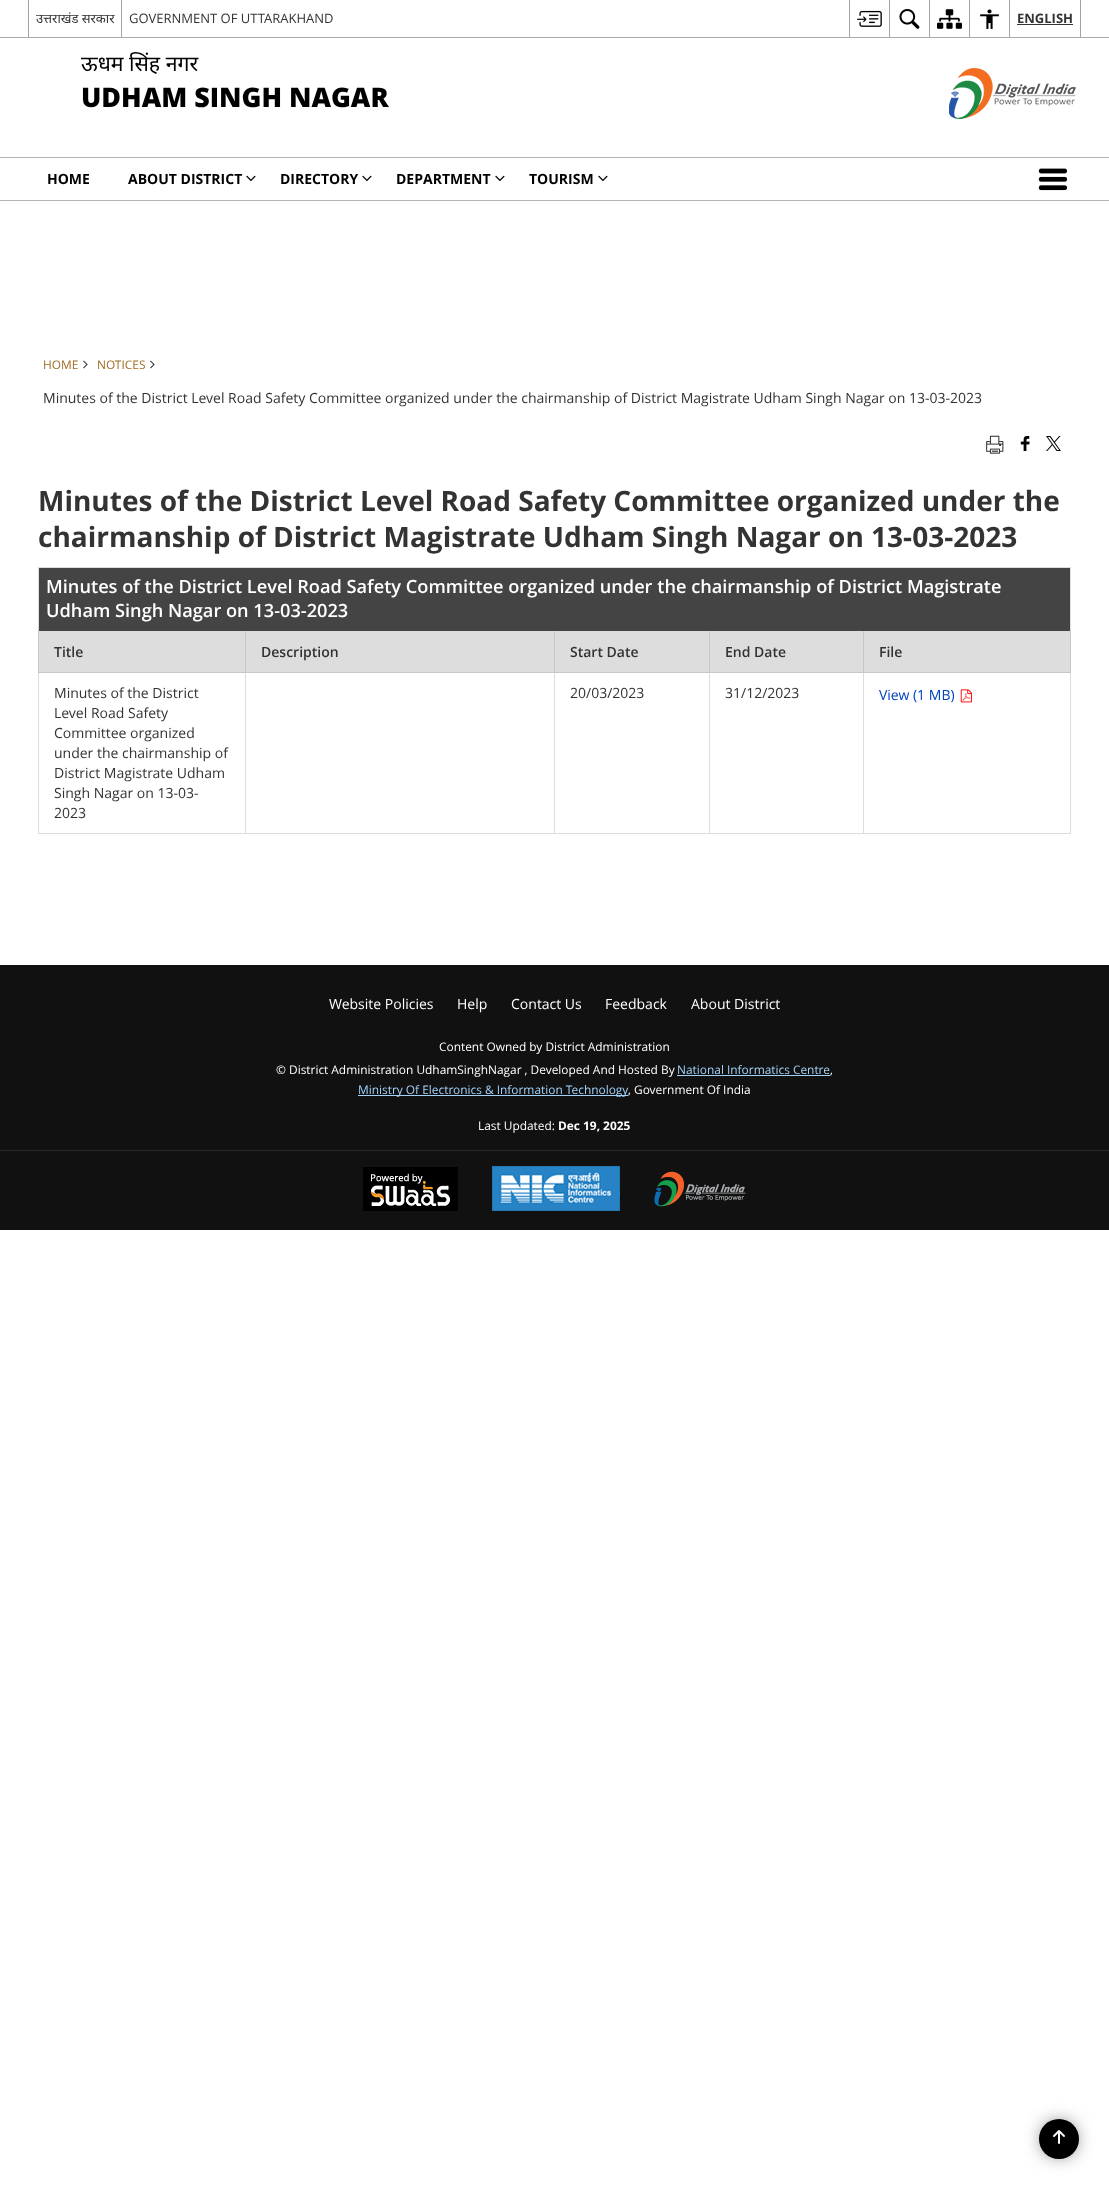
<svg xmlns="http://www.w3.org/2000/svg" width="1109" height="2189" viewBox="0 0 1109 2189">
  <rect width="100%" height="100%" fill="rgb(255,255,255)"/>
  <rect x="0" y="37" width="1109" height="1" fill="rgb(171,171,171)"/>
  <rect x="28" y="0" width="1" height="37" fill="rgb(163,163,163)"/>
  <text x="36" y="23" font-family="Noto Sans" font-size="13" fill="rgb(51,51,51)">उत्तराखंड सरकार</text>
  <rect x="121" y="0" width="1" height="37" fill="rgb(163,163,163)"/>
  <text x="129" y="23" font-family="Open Sans" font-size="13" fill="rgb(51,51,51)">GOVERNMENT OF UTTARAKHAND</text>
  <rect x="849" y="0" width="1" height="37" fill="rgb(163,163,163)"/>
  <image x="857" y="10" width="25" height="17" href="pic1.png"/>
  <rect x="889" y="0" width="1" height="37" fill="rgb(163,163,163)"/>
  <image x="899" y="9" width="21" height="20" href="pic2.png"/>
  <rect x="929" y="0" width="1" height="37" fill="rgb(163,163,163)"/>
  <image x="937" y="9" width="25" height="20" href="pic3.png"/>
  <rect x="969" y="0" width="1" height="37" fill="rgb(163,163,163)"/>
  <image x="980" y="9" width="19" height="20" href="pic4.png"/>
  <rect x="1080" y="0" width="1" height="37" fill="rgb(163,163,163)"/>
  <rect x="1009" y="0" width="1" height="37" fill="rgb(163,163,163)"/>
  <text x="1017" y="23" font-family="Open Sans" font-size="13" font-weight="bold" fill="rgb(51,51,51)">ENGLISH</text>
  <rect x="1017" y="24" width="56" height="1" fill="rgb(51,51,51)"/>
  <text x="81" y="71" font-family="Noto Sans" font-size="21.25" fill="rgb(0,0,0)">ऊधम सिंह नगर</text>
  <text x="81" y="107" font-family="Open Sans" font-size="26.9" font-weight="800" fill="rgb(0,0,0)">UDHAM SINGH NAGAR</text>
  <image x="949" y="68" width="127" height="51" href="pic5.png"/>
  <rect x="0" y="157" width="1109" height="1" fill="rgb(179,179,179)"/>
  <rect x="0" y="200" width="1109" height="1" fill="rgb(179,179,179)"/>
  <g font-family="Open Sans" font-size="14" font-weight="bold" fill="rgb(0,0,0)">
    <text x="47" y="184">HOME</text>
    <text x="128" y="184">ABOUT DISTRICT</text>
  </g>
  <image x="246" y="175" width="10" height="7" href="pic6.png"/>
  <text x="280" y="184" font-family="Open Sans" font-size="14" font-weight="bold" fill="rgb(0,0,0)">DIRECTORY</text>
  <image x="362" y="175" width="10" height="7" href="pic6.png"/>
  <text x="396" y="184" font-family="Open Sans" font-size="14" font-weight="bold" fill="rgb(0,0,0)">DEPARTMENT</text>
  <image x="495" y="175" width="10" height="7" href="pic6.png"/>
  <text x="529" y="184" font-family="Open Sans" font-size="14" font-weight="bold" fill="rgb(0,0,0)">TOURISM</text>
  <image x="598" y="175" width="10" height="7" href="pic6.png"/>
  <image x="1038" y="168" width="30" height="23" href="pic7.png"/>
  <text x="43" y="369" font-family="Open Sans" font-size="11.9" fill="rgb(158,107,34)">HOME</text>
  <image x="83" y="360" width="5" height="9" href="pic8.png"/>
  <text x="97" y="369" font-family="Open Sans" font-size="11.9" fill="rgb(158,107,34)">NOTICES</text>
  <image x="150" y="360" width="5" height="9" href="pic8.png"/>
  <text x="43" y="403" font-family="Open Sans" font-size="14" fill="rgb(51,51,51)">Minutes of the District Level Road Safety Committee organized under the chairmanship of District Magistrate Udham Singh Nagar on 13-03-2023</text>
  <image x="986" y="435" width="18" height="19" href="pic9.png"/>
  <image x="1020" y="436" width="10" height="15" href="pic10.png"/>
  <image x="1046" y="436" width="15" height="15" href="pic11.png"/>
  <g font-family="Open Sans" font-size="28" font-weight="bold" fill="rgb(51,51,51)">
    <text>
      <tspan x="38" y="511">Minutes of the District Level Road Safety Committee organized under the</tspan>
      <tspan x="38" y="547">chairmanship of District Magistrate Udham Singh Nagar on 13-03-2023</tspan>
    </text>
  </g>
  <rect x="38" y="567" width="1033" height="1" fill="rgb(221,221,221)"/>
  <rect x="1070" y="567" width="1" height="267" fill="rgb(221,221,221)"/>
  <rect x="38" y="833" width="1033" height="1" fill="rgb(221,221,221)"/>
  <rect x="38" y="567" width="1" height="267" fill="rgb(221,221,221)"/>
  <rect x="39" y="568" width="1031" height="63" fill="rgb(68,68,68)"/>
  <g font-family="Open Sans" font-size="18.2" font-weight="600" fill="rgb(255,255,255)">
    <text>
      <tspan x="46" y="593">Minutes of the District Level Road Safety Committee organized under the chairmanship of District Magistrate</tspan>
      <tspan x="46" y="617">Udham Singh Nagar on 13-03-2023</tspan>
    </text>
  </g>
  <rect x="39" y="631" width="206" height="41" fill="rgb(221,221,221)"/>
  <rect x="1070" y="631" width="1" height="42" fill="rgb(199,199,199)"/>
  <rect x="863" y="672" width="1" height="162" fill="rgb(221,221,221)"/>
  <rect x="863" y="672" width="208" height="1" fill="rgb(199,199,199)"/>
  <rect x="863" y="631" width="1" height="42" fill="rgb(199,199,199)"/>
  <rect x="709" y="672" width="1" height="162" fill="rgb(221,221,221)"/>
  <rect x="709" y="672" width="155" height="1" fill="rgb(199,199,199)"/>
  <rect x="709" y="631" width="1" height="42" fill="rgb(199,199,199)"/>
  <rect x="554" y="672" width="1" height="162" fill="rgb(221,221,221)"/>
  <rect x="554" y="672" width="156" height="1" fill="rgb(199,199,199)"/>
  <rect x="554" y="631" width="1" height="42" fill="rgb(199,199,199)"/>
  <rect x="245" y="672" width="1" height="162" fill="rgb(221,221,221)"/>
  <rect x="245" y="672" width="310" height="1" fill="rgb(199,199,199)"/>
  <rect x="245" y="631" width="1" height="42" fill="rgb(199,199,199)"/>
  <rect x="38" y="672" width="208" height="1" fill="rgb(199,199,199)"/>
  <rect x="38" y="631" width="1" height="42" fill="rgb(199,199,199)"/>
  <text x="54" y="657" font-family="Open Sans" font-size="14" font-weight="600" fill="rgb(51,51,51)">Title</text>
  <rect x="246" y="631" width="308" height="41" fill="rgb(221,221,221)"/>
  <text x="261" y="657" font-family="Open Sans" font-size="14" font-weight="600" fill="rgb(51,51,51)">Description</text>
  <rect x="555" y="631" width="154" height="41" fill="rgb(221,221,221)"/>
  <text x="570" y="657" font-family="Open Sans" font-size="14" font-weight="600" fill="rgb(51,51,51)">Start Date</text>
  <rect x="710" y="631" width="153" height="41" fill="rgb(221,221,221)"/>
  <text x="725" y="657" font-family="Open Sans" font-size="14" font-weight="600" fill="rgb(51,51,51)">End Date</text>
  <rect x="864" y="631" width="206" height="41" fill="rgb(221,221,221)"/>
  <text x="879" y="657" font-family="Open Sans" font-size="14" font-weight="600" fill="rgb(51,51,51)">File</text>
  <g font-family="Open Sans" font-size="14" fill="rgb(51,51,51)">
    <text>
      <tspan x="54" y="698">Minutes of the District</tspan>
      <tspan x="54" y="718">Level Road Safety</tspan>
      <tspan x="54" y="738">Committee organized</tspan>
      <tspan x="54" y="758">under the chairmanship of</tspan>
      <tspan x="54" y="778">District Magistrate Udham</tspan>
      <tspan x="54" y="798">Singh Nagar on 13-03-</tspan>
      <tspan x="54" y="818">2023</tspan>
    </text>
    <text x="570" y="698">20/03/2023</text>
    <text x="725" y="698">31/12/2023</text>
  </g>
  <text x="879" y="700" font-family="Open Sans" font-size="14" fill="rgb(0,66,191)">View (1 MB)</text>
  <image x="960" y="689" width="12" height="14" href="pic12.png"/>
  <rect x="0" y="965" width="1109" height="265" fill="rgb(17,17,17)"/>
  <g font-family="Open Sans" font-size="14" fill="rgb(255,255,255)">
    <text x="329" y="1009">Website Policies</text>
    <text x="457" y="1009">Help</text>
    <text x="511" y="1009">Contact Us</text>
    <text x="605" y="1009">Feedback</text>
    <text x="691" y="1009">About District</text>
  </g>
  <g font-family="Open Sans" font-size="11.9" fill="rgb(255,255,255)">
    <text x="439" y="1051">Content Owned by District Administration</text>
    <text x="276" y="1074">© District Administration UdhamSinghNagar , Developed And Hosted By</text>
  </g>
  <text x="677" y="1074" font-family="Open Sans" font-size="11.9" fill="rgb(163,210,249)">National Informatics Centre</text>
  <rect x="677" y="1075" width="153" height="1" fill="rgb(163,210,249)"/>
  <text x="830" y="1074" font-family="Open Sans" font-size="11.9" fill="rgb(255,255,255)">,</text>
  <rect x="358" y="1095" width="270" height="1" fill="rgb(163,210,249)"/>
  <text x="358" y="1094" font-family="Open Sans" font-size="11.9" fill="rgb(163,210,249)">Ministry Of Electronics &amp; Information Technology</text>
  <g font-family="Open Sans" font-size="11.9" fill="rgb(255,255,255)">
    <text x="628" y="1094">, Government Of India</text>
    <text x="478" y="1130">Last Updated:</text>
  </g>
  <text x="558" y="1130" font-family="Open Sans" font-size="11.9" font-weight="bold" fill="rgb(255,255,255)">Dec 19, 2025</text>
  <rect x="0" y="1150" width="1109" height="1" fill="rgb(41,41,41)"/>
  <image x="363" y="1167" width="95" height="44" href="pic13.png"/>
  <image x="492" y="1166" width="128" height="45" href="pic14.png"/>
  <image x="654" y="1171" width="92" height="36" href="pic15.png"/>
  <rect x="1044" y="2124" width="30" height="30" rx="15" fill="rgb(60,60,60)" filter="blur(9.5px)"/>
  <circle cx="1059" cy="2139" r="20" fill="rgb(0,0,0)"/>
  <image x="1053" y="2130" width="12" height="14" href="pic16.png"/>
</svg>
